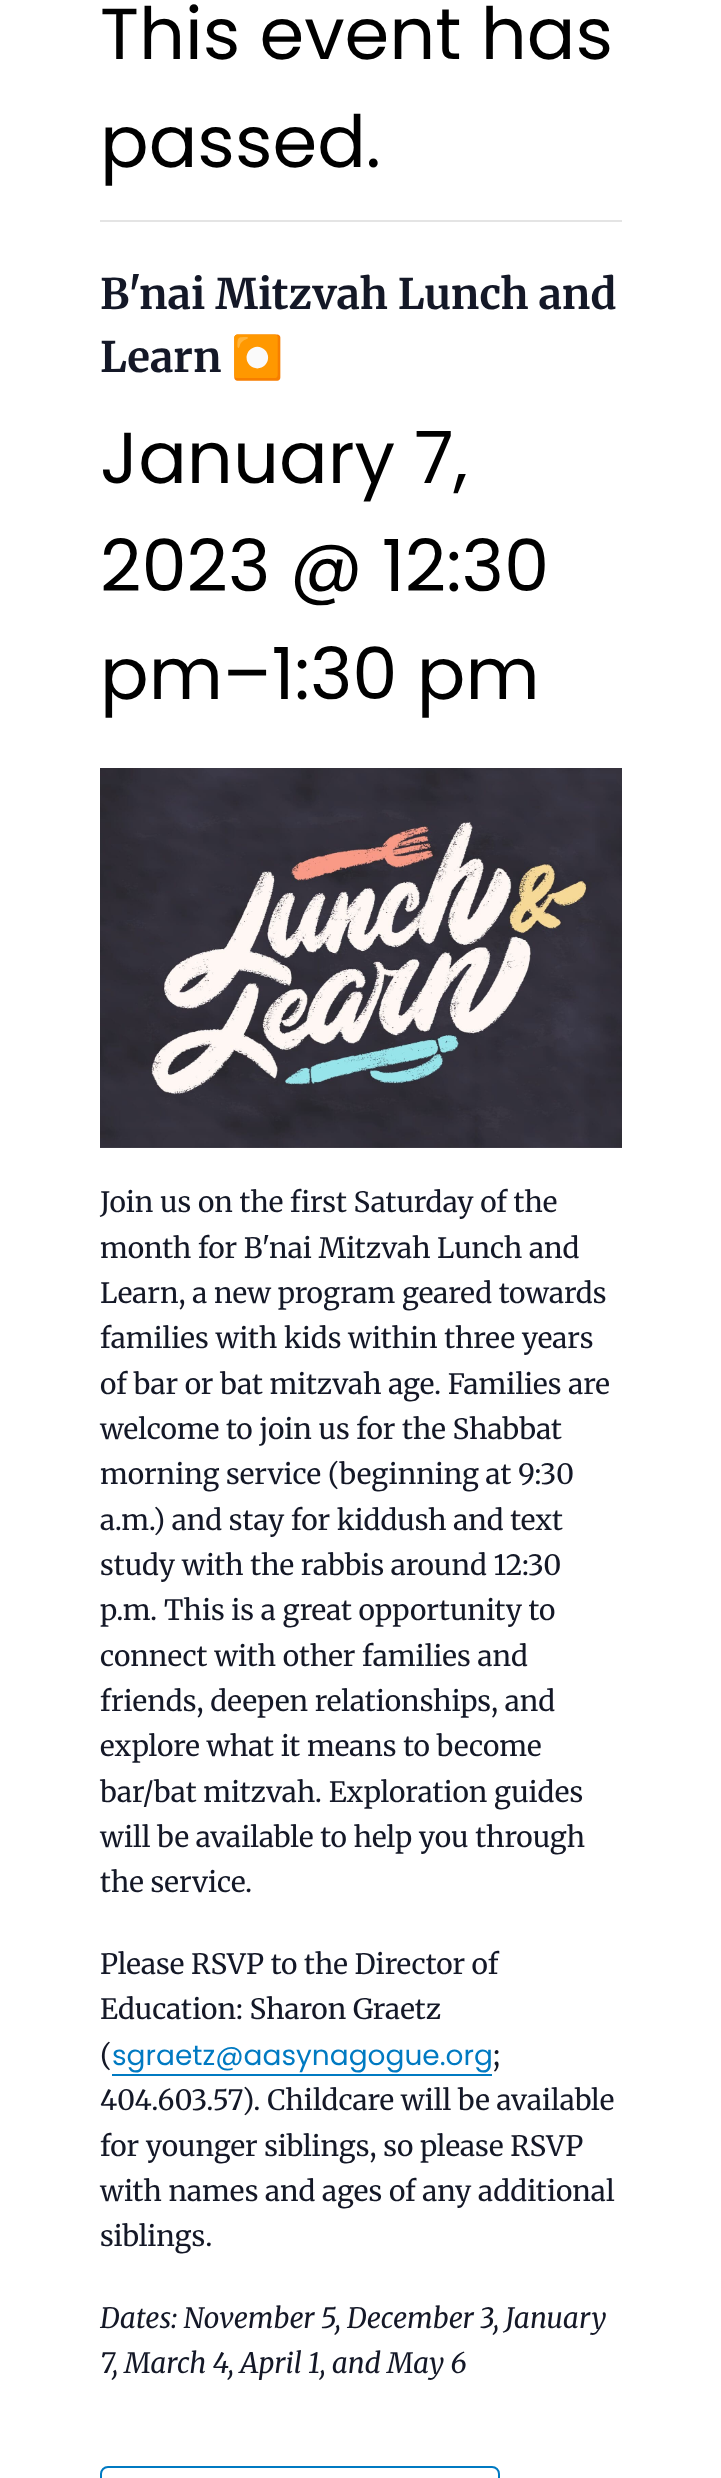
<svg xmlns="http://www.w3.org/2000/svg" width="721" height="2478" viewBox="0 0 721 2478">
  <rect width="100%" height="100%" fill="rgb(255,255,255)"/>
  <rect x="100" y="220" width="522" height="2" fill="rgb(228,228,228)"/>
  <g font-family="Poppins" font-size="72" fill="rgb(0,0,0)">
    <text>
      <tspan x="100" y="59">This event has</tspan>
      <tspan x="100" y="167">passed.</tspan>
    </text>
  </g>
  <g font-family="Merriweather" font-size="42" font-weight="bold" fill="rgb(20,24,39)">
    <text>
      <tspan x="100" y="309">B'nai Mitzvah Lunch and</tspan>
      <tspan x="100" y="372">Learn</tspan>
    </text>
  </g>
  <text x="231" y="372" font-family="Noto Color Emoji" font-size="42" font-weight="bold" fill="rgb(20,24,39)">⏺️</text>
  <g font-family="Poppins" font-size="72" fill="rgb(0,0,0)">
    <text>
      <tspan x="100" y="483">January 7,</tspan>
      <tspan x="100" y="591">2023 @ 12:30</tspan>
      <tspan x="100" y="699">pm–1:30 pm</tspan>
    </text>
  </g>
  <image x="100" y="768" width="522" height="380" href="pic1.png"/>
  <g font-family="Merriweather" font-size="28" fill="rgb(20,24,39)">
    <text>
      <tspan x="100" y="1212">Join us on the first Saturday of the</tspan>
      <tspan x="100" y="1258">month for B'nai Mitzvah Lunch and</tspan>
      <tspan x="100" y="1303">Learn, a new program geared towards</tspan>
      <tspan x="100" y="1348">families with kids within three years</tspan>
      <tspan x="100" y="1394">of bar or bat mitzvah age. Families are</tspan>
      <tspan x="100" y="1439">welcome to join us for the Shabbat</tspan>
      <tspan x="100" y="1484">morning service (beginning at 9:30</tspan>
      <tspan x="100" y="1530">a.m.) and stay for kiddush and text</tspan>
      <tspan x="100" y="1575">study with the rabbis around 12:30</tspan>
      <tspan x="100" y="1620">p.m. This is a great opportunity to</tspan>
      <tspan x="100" y="1666">connect with other families and</tspan>
      <tspan x="100" y="1711">friends, deepen relationships, and</tspan>
      <tspan x="100" y="1756">explore what it means to become</tspan>
      <tspan x="100" y="1802">bar/bat mitzvah. Exploration guides</tspan>
      <tspan x="100" y="1847">will be available to help you through</tspan>
      <tspan x="100" y="1892">the service.</tspan>
    </text>
    <text>
      <tspan x="100" y="1974">Please RSVP to the Director of</tspan>
      <tspan x="100" y="2019">Education: Sharon Graetz</tspan>
      <tspan x="100" y="2065">(</tspan>
    </text>
  </g>
  <text x="112" y="2065" font-family="Poppins" font-size="28" fill="rgb(0,122,194)">sgraetz@aasynagogue.org</text>
  <rect x="112" y="2074" width="380" height="2" fill="rgb(0,122,194)"/>
  <g font-family="Merriweather" font-size="28" fill="rgb(20,24,39)">
    <text x="493" y="2065">;</text>
    <text>
      <tspan x="100" y="2110">404.603.57). Childcare will be available</tspan>
      <tspan x="100" y="2156">for younger siblings, so please RSVP</tspan>
      <tspan x="100" y="2201">with names and ages of any additional</tspan>
      <tspan x="100" y="2246">siblings.</tspan>
    </text>
  </g>
  <g font-family="Merriweather" font-size="28" font-style="italic" fill="rgb(20,24,39)">
    <text>
      <tspan x="100" y="2328">Dates: November 5, December 3, January</tspan>
      <tspan x="100" y="2373">7, March 4, April 1, and May 6</tspan>
    </text>
  </g>
  <rect x="101" y="2467" width="398" height="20" rx="7" fill="none" stroke="rgb(0,122,194)" stroke-width="2"/>
</svg>
